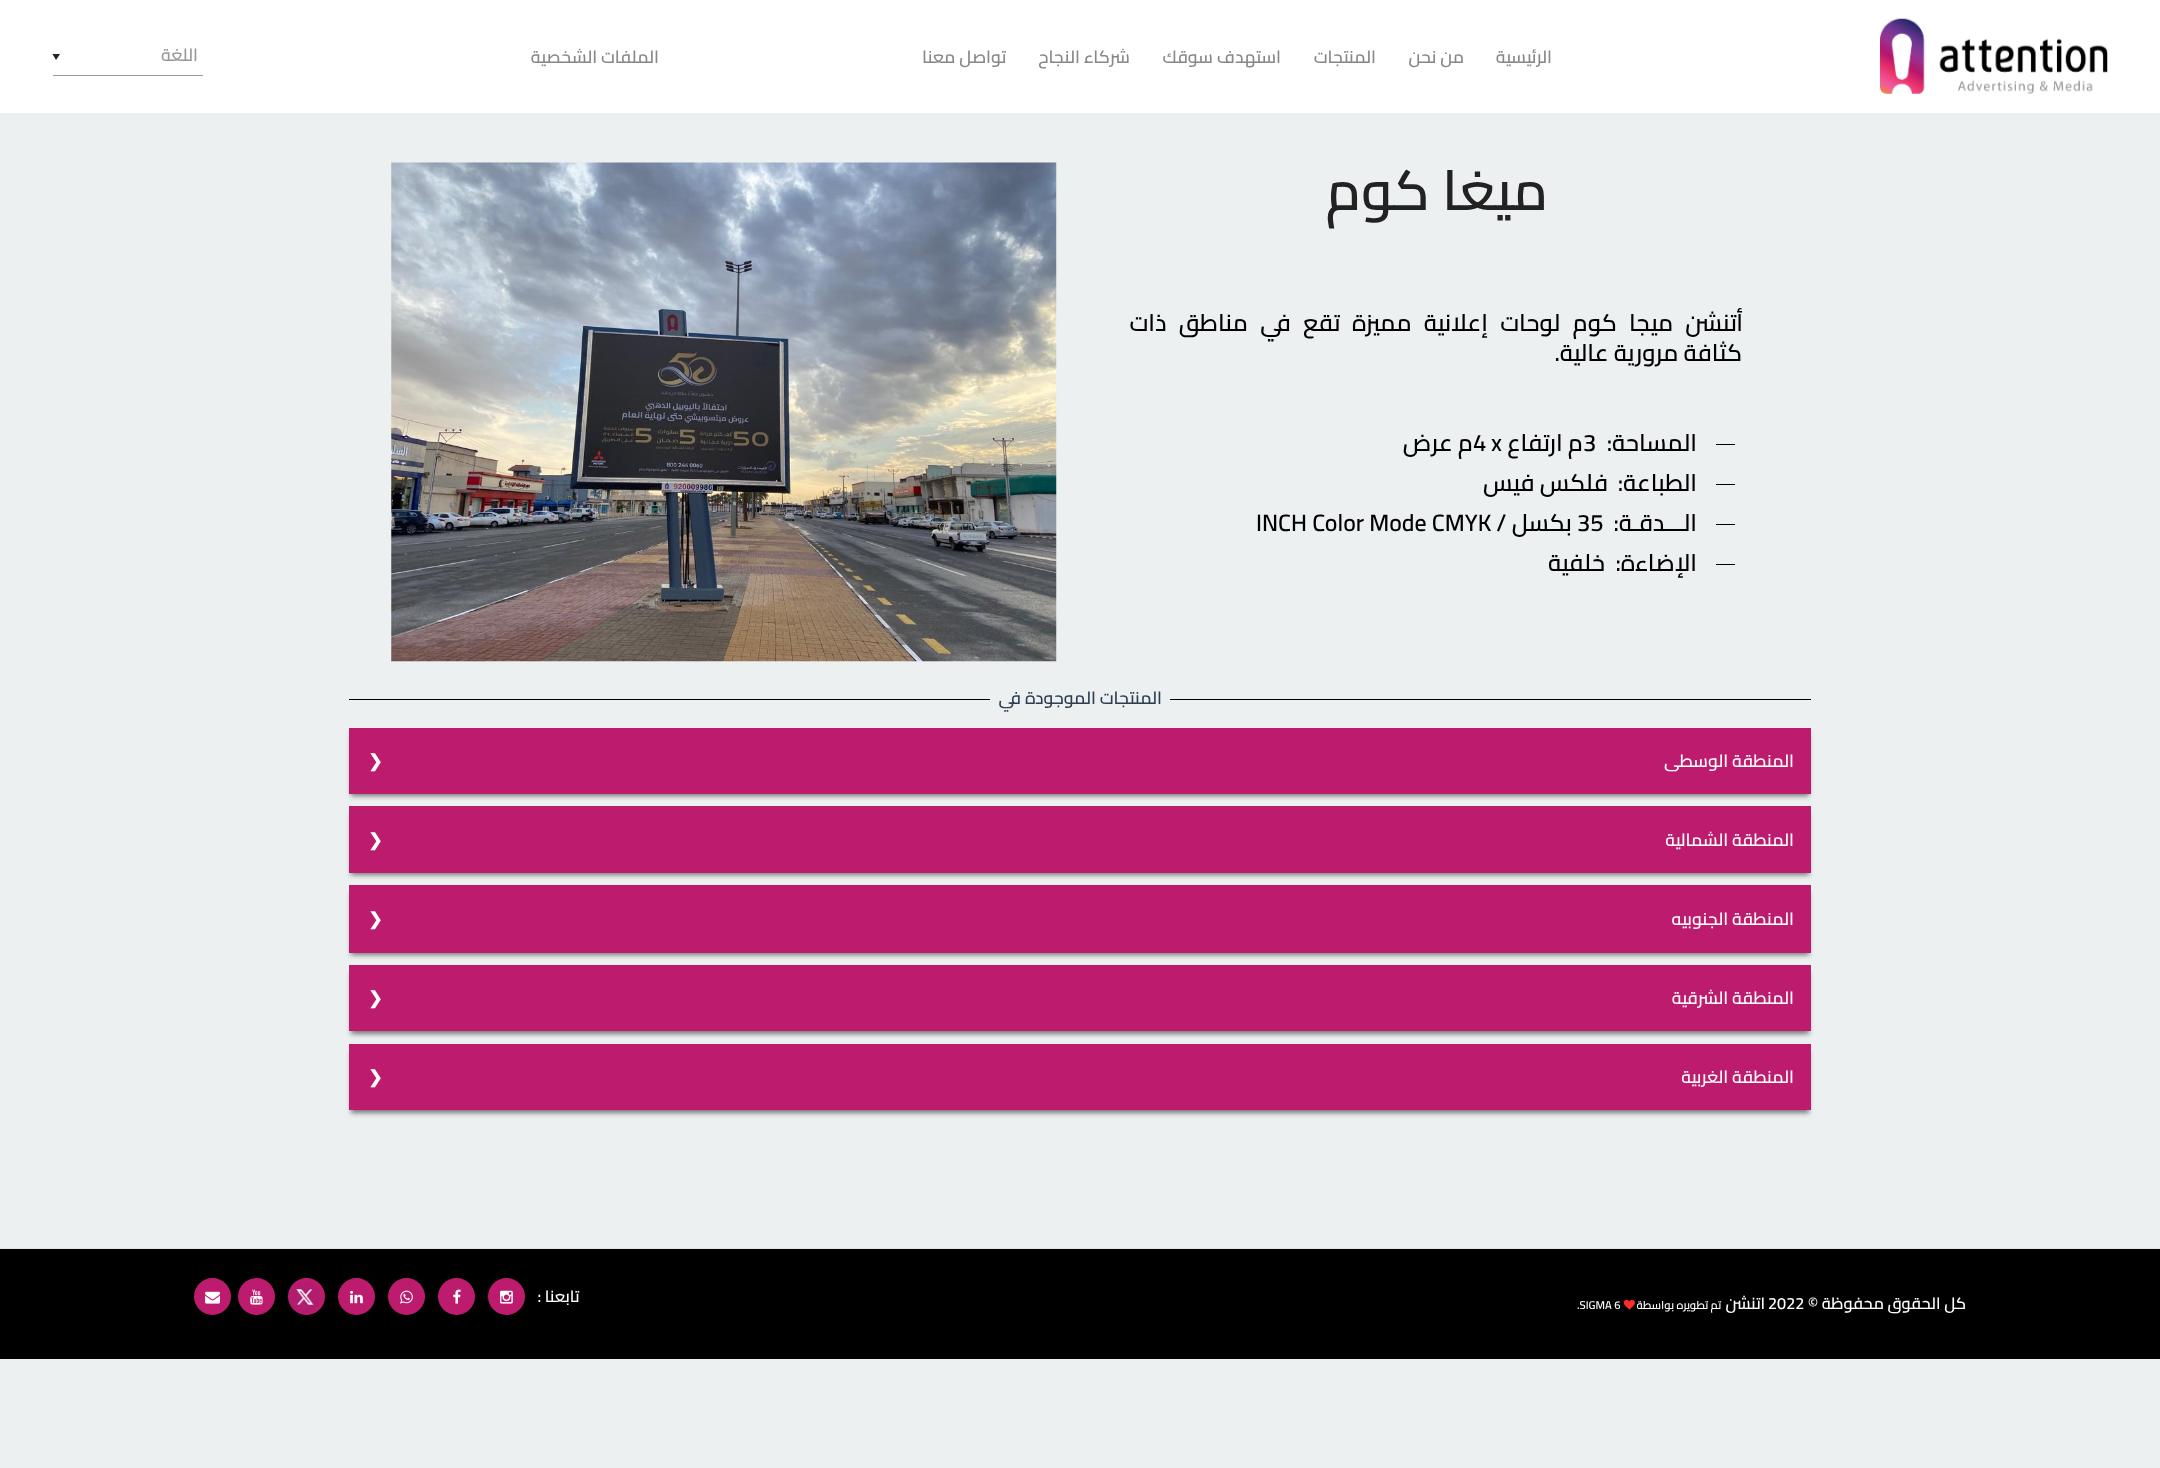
<svg xmlns="http://www.w3.org/2000/svg" width="2160" height="1468" viewBox="0 0 2160 1468">
  <rect width="100%" height="100%" fill="rgb(236,240,241)"/>
  <rect x="0" y="0" width="2160" height="113" fill="rgb(255,255,255)"/>
  <image x="1880" y="18" width="228" height="76" href="pic1.png"/>
  <g font-family="Cairo" font-size="17.5" font-weight="600" direction="rtl" fill="rgb(136,136,136)">
    <text x="1552" y="63">الرئيسية</text>
    <text x="1464" y="63">من نحن</text>
    <text x="1376" y="63">المنتجات</text>
    <text x="1281" y="63">استهدف سوقك</text>
    <text x="1130" y="63">شركاء النجاح</text>
    <text x="1006" y="63">تواصل معنا</text>
    <text x="659" y="63">الملفات الشخصية</text>
  </g>
  <rect x="53" y="75" width="150" height="1" fill="rgb(152,152,152)"/>
  <text x="198" y="61" font-family="Cairo" font-size="17.5" font-weight="600" direction="rtl" fill="rgb(152,152,152)">اللغة</text>
  <path d="M52.5 54H60L56 60Z" fill="rgb(34,34,34)"/>
  <text x="1548" y="210" font-family="Cairo" font-size="56" font-weight="600" direction="rtl" fill="rgb(34,34,34)">ميغا كوم</text>
  <g font-family="Cairo" font-size="23.75" font-weight="600" direction="rtl" fill="rgb(0,0,0)">
    <text x="1743" y="331" word-spacing="7">أتنشن ميجا كوم لوحات إعلانية مميزة تقع في مناطق ذات</text>
    <text x="1742" y="361">كثافة مرورية عالية.</text>
  </g>
  <rect x="1716" y="444" width="19" height="1" fill="rgb(0,0,0)"/>
  <text x="1697" y="451" font-family="Cairo" font-size="23.75" font-weight="600" direction="rtl" fill="rgb(0,0,0)">المساحة:</text>
  <text x="1583" y="451" font-family="Cairo" font-size="23.75" font-weight="600" fill="rgb(0,0,0)">3</text>
  <text x="1583" y="451" font-family="Cairo" font-size="23.75" font-weight="600" direction="rtl" fill="rgb(0,0,0)">م ارتفاع</text>
  <g font-family="Cairo" font-size="23.75" font-weight="600" fill="rgb(0,0,0)">
    <text x="1491" y="451">x</text>
    <text x="1473" y="451">4</text>
  </g>
  <text x="1473" y="451" font-family="Cairo" font-size="23.75" font-weight="600" direction="rtl" fill="rgb(0,0,0)">م عرض</text>
  <rect x="1716" y="484" width="19" height="1" fill="rgb(0,0,0)"/>
  <g font-family="Cairo" font-size="23.75" font-weight="600" direction="rtl" fill="rgb(0,0,0)">
    <text x="1697" y="491">الطباعة:</text>
    <text x="1608" y="491">فلكس فيس</text>
  </g>
  <rect x="1716" y="524" width="19" height="1" fill="rgb(0,0,0)"/>
  <text x="1697" y="531" font-family="Cairo" font-size="23.75" font-weight="600" direction="rtl" fill="rgb(0,0,0)">الـــدقـة:</text>
  <text x="1577" y="531" font-family="Cairo" font-size="23.75" font-weight="600" fill="rgb(0,0,0)">35</text>
  <text x="1572" y="531" font-family="Cairo" font-size="23.75" font-weight="600" direction="rtl" fill="rgb(0,0,0)">بكسل /</text>
  <text x="1256" y="531" font-family="Cairo" font-size="23.75" font-weight="600" fill="rgb(0,0,0)">INCH Color Mode CMYK</text>
  <rect x="1716" y="564" width="19" height="1" fill="rgb(0,0,0)"/>
  <g font-family="Cairo" font-size="23.75" font-weight="600" direction="rtl" fill="rgb(0,0,0)">
    <text x="1697" y="571">الإضاءة:</text>
    <text x="1605" y="571">خلفية</text>
  </g>
  <image x="391" y="162" width="666" height="500" href="pic2.png"/>
  <rect x="1170" y="699" width="641" height="1" fill="rgb(0,0,0)"/>
  <text x="1162" y="704" font-family="Cairo" font-size="17.5" font-weight="600" direction="rtl" fill="rgb(44,62,80)">المنتجات الموجودة في</text>
  <rect x="349" y="699" width="641" height="1" fill="rgb(0,0,0)"/>
  <rect x="351" y="735" width="1458" height="61" fill="rgba(0,0,0,0.5)" filter="blur(2.5px)"/>
  <rect x="349" y="728" width="1462" height="66" fill="rgb(189,28,110)"/>
  <text x="1794" y="767" font-family="Cairo" font-size="17.5" font-weight="600" direction="rtl" fill="rgb(255,255,255)">المنطقة الوسطى</text>
  <text x="368" y="767" font-family="DejaVu Sans" font-size="17.5" font-weight="bold" fill="rgb(255,255,255)">❯</text>
  <rect x="351" y="814" width="1458" height="61" fill="rgba(0,0,0,0.5)" filter="blur(2.5px)"/>
  <rect x="349" y="806" width="1462" height="67" fill="rgb(189,28,110)"/>
  <text x="1794" y="846" font-family="Cairo" font-size="17.5" font-weight="600" direction="rtl" fill="rgb(255,255,255)">المنطقة الشمالية</text>
  <text x="368" y="846" font-family="DejaVu Sans" font-size="17.5" font-weight="bold" fill="rgb(255,255,255)">❯</text>
  <rect x="351" y="893" width="1458" height="62" fill="rgba(0,0,0,0.5)" filter="blur(2.5px)"/>
  <rect x="349" y="885" width="1462" height="68" fill="rgb(189,28,110)"/>
  <text x="1794" y="925" font-family="Cairo" font-size="17.5" font-weight="600" direction="rtl" fill="rgb(255,255,255)">المنطقة الجنوبيه</text>
  <text x="368" y="925" font-family="DejaVu Sans" font-size="17.5" font-weight="bold" fill="rgb(255,255,255)">❯</text>
  <rect x="351" y="973" width="1458" height="61" fill="rgba(0,0,0,0.5)" filter="blur(2.5px)"/>
  <rect x="349" y="965" width="1462" height="66" fill="rgb(189,28,110)"/>
  <text x="1794" y="1004" font-family="Cairo" font-size="17.5" font-weight="600" direction="rtl" fill="rgb(255,255,255)">المنطقة الشرقية</text>
  <text x="368" y="1004" font-family="DejaVu Sans" font-size="17.5" font-weight="bold" fill="rgb(255,255,255)">❯</text>
  <rect x="351" y="1051" width="1458" height="62" fill="rgba(0,0,0,0.5)" filter="blur(2.5px)"/>
  <rect x="349" y="1044" width="1462" height="66" fill="rgb(189,28,110)"/>
  <text x="1794" y="1083" font-family="Cairo" font-size="17.5" font-weight="600" direction="rtl" fill="rgb(255,255,255)">المنطقة الغربية</text>
  <text x="368" y="1083" font-family="DejaVu Sans" font-size="17.5" font-weight="bold" fill="rgb(255,255,255)">❯</text>
  <rect x="0" y="1248" width="2160" height="1" fill="rgb(227,227,227)"/>
  <rect x="0" y="1249" width="2160" height="110" fill="rgb(0,0,0)"/>
  <text x="1966" y="1309" font-family="Cairo" font-size="16.25" font-weight="600" direction="rtl" fill="rgb(255,255,255)">كل الحقوق محفوظة ©</text>
  <text x="1768" y="1309" font-family="Cairo" font-size="16.25" font-weight="600" fill="rgb(255,255,255)">2022</text>
  <text x="1765" y="1309" font-family="Cairo" font-size="16.25" font-weight="600" direction="rtl" fill="rgb(255,255,255)">اتنشن</text>
  <text x="1721" y="1309" font-family="Cairo" font-size="11.25" font-weight="600" direction="rtl" fill="rgb(255,255,255)">تم تطويره بواسطة</text>
  <image x="1623" y="1299" width="12" height="11" href="pic3.png"/>
  <text x="1577" y="1309" font-family="Cairo" font-size="11.25" font-weight="600" fill="rgb(255,255,255)">.SIGMA 6</text>
  <text x="579" y="1302" font-family="Cairo" font-size="16.25" font-weight="600" direction="rtl" fill="rgb(255,255,255)">تابعنا :</text>
  <circle cx="506.5" cy="1296.5" r="18.5" fill="rgb(189,28,110)"/>
  <image x="500" y="1290" width="13" height="14" href="pic4.png"/>
  <circle cx="456.5" cy="1296.5" r="18.5" fill="rgb(189,28,110)"/>
  <image x="453" y="1289" width="8" height="15" href="pic5.png"/>
  <circle cx="406.5" cy="1296.5" r="18.5" fill="rgb(189,28,110)"/>
  <image x="400" y="1290" width="13" height="14" href="pic6.png"/>
  <circle cx="356.5" cy="1296.5" r="18.5" fill="rgb(189,28,110)"/>
  <image x="350" y="1290" width="13" height="14" href="pic7.png"/>
  <circle cx="306.5" cy="1296.5" r="18.5" fill="rgb(189,28,110)"/>
  <image x="289" y="1282" width="32" height="31" href="pic8.png"/>
  <circle cx="256.5" cy="1296.5" r="18.5" fill="rgb(189,28,110)"/>
  <image x="250" y="1289" width="13" height="16" href="pic9.png"/>
  <circle cx="212.5" cy="1296.5" r="18.5" fill="rgb(189,28,110)"/>
  <image x="205" y="1291" width="15" height="13" href="pic10.png"/>
</svg>
